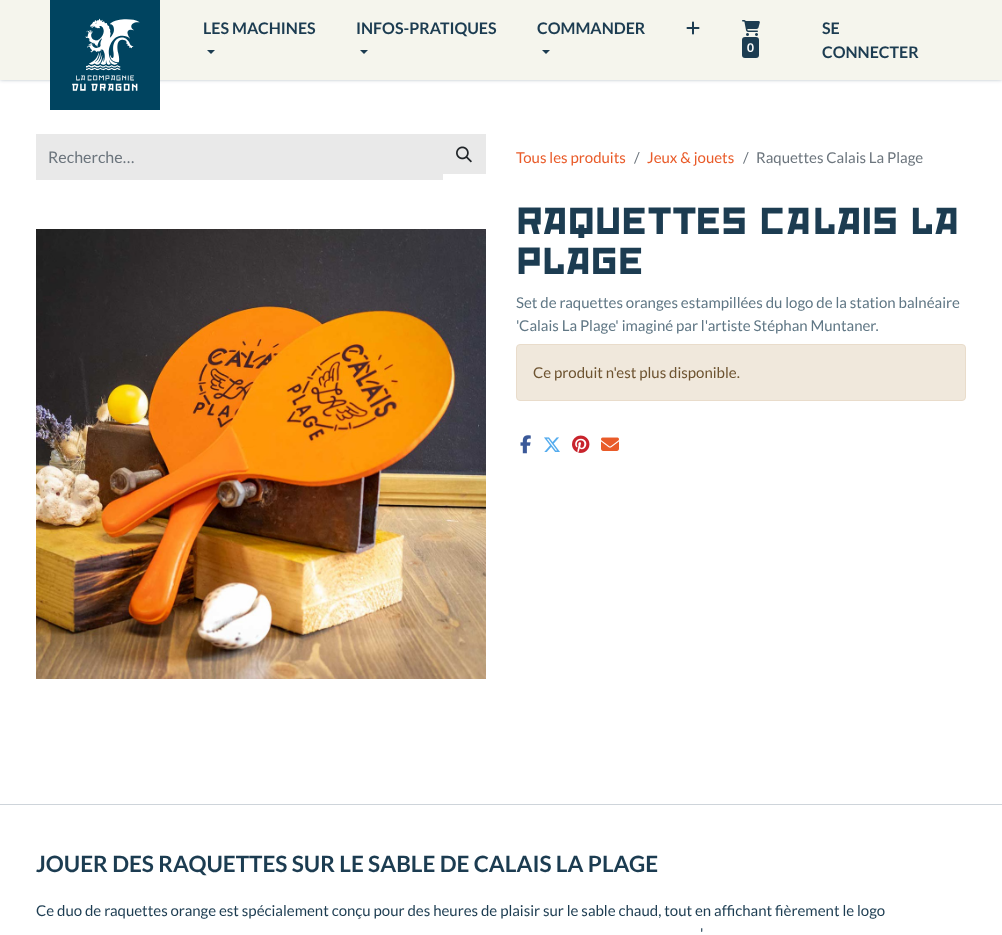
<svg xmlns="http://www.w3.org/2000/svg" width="1002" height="935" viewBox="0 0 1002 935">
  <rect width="100%" height="100%" fill="rgb(255,255,255)"/>
  <rect x="0" y="-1" width="1002" height="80" fill="rgba(28,60,81,0.5)" filter="blur(2px)"/>
  <rect x="0" y="0" width="1002" height="80" fill="rgb(245,245,237)"/>
  <image x="50" y="0" width="110" height="110" href="pic1.png"/>
  <text x="203" y="34" font-family="Lato" font-size="16" font-weight="bold" fill="rgb(28,60,81)">LES MACHINES</text>
  <path d="M207 50H215L211 54Z" fill="rgb(28,60,81)"/>
  <text x="356" y="34" font-family="Lato" font-size="16" font-weight="bold" fill="rgb(28,60,81)">INFOS-PRATIQUES</text>
  <path d="M360 50H368L364 54Z" fill="rgb(28,60,81)"/>
  <text x="537" y="34" font-family="Lato" font-size="16" font-weight="bold" fill="rgb(28,60,81)">COMMANDER</text>
  <path d="M542 50H550L546 54Z" fill="rgb(28,60,81)"/>
  <image x="686" y="21" width="14" height="14" href="pic2.png"/>
  <image x="742" y="20" width="18" height="16" href="pic3.png"/>
  <rect x="742" y="37" width="17" height="21" rx="3" fill="rgb(28,60,81)"/>
  <text x="747" y="52" font-family="Lato" font-size="12" font-weight="bold" fill="rgb(255,255,255)">0</text>
  <g font-family="Lato" font-size="16" font-weight="bold" fill="rgb(28,60,81)">
    <text>
      <tspan x="822" y="34">SE</tspan>
      <tspan x="822" y="58">CONNECTER</tspan>
    </text>
  </g>
  <rect x="36" y="134" width="407" height="46" fill="rgb(233,233,233)"/>
  <text x="48" y="163" font-family="Lato" font-size="16" fill="rgb(108,117,125)">Recherche…</text>
  <rect x="443" y="134" width="43" height="40" fill="rgb(233,233,233)"/>
  <image x="456" y="146" width="16" height="17" href="pic4.png"/>
  <text x="516" y="163" font-family="Lato" font-size="15" fill="rgb(233,91,41)">Tous les produits</text>
  <text x="634" y="163" font-family="Lato" font-size="15" fill="rgb(108,117,125)">/</text>
  <text x="647" y="163" font-family="Lato" font-size="15" fill="rgb(233,91,41)">Jeux &amp; jouets</text>
  <g font-family="Lato" font-size="15" fill="rgb(108,117,125)">
    <text x="743" y="163">/</text>
    <text x="756" y="163">Raquettes Calais La Plage</text>
  </g>
  <image x="36" y="229" width="450" height="450" href="pic5.png"/>
  <g font-family="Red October" font-size="33" letter-spacing="-0.3" fill="rgb(28,60,81)">
    <text>
      <tspan x="516" y="234">RAQUETTES CALAIS LA</tspan>
      <tspan x="516" y="274">PLAGE</tspan>
    </text>
  </g>
  <g font-family="Lato" font-size="15" fill="rgb(96,119,133)">
    <text>
      <tspan x="516" y="308">Set de raquettes oranges estampillées du logo de la station balnéaire</tspan>
      <tspan x="516" y="331">'Calais La Plage' imaginé par l'artiste Stéphan Muntaner.</tspan>
    </text>
  </g>
  <rect x="516.5" y="344.5" width="449" height="56" rx="3.5" fill="rgb(240,232,220)" stroke="rgb(233,220,203)"/>
  <text x="533" y="378" font-family="Lato" font-size="15" fill="rgb(109,83,48)">Ce produit n'est plus disponible.</text>
  <image x="520" y="435" width="11" height="19" href="pic6.png"/>
  <image x="544" y="437" width="16" height="15" href="pic7.png"/>
  <image x="572" y="435" width="18" height="18" href="pic8.png"/>
  <image x="601" y="437" width="18" height="14" href="pic9.png"/>
  <rect x="0" y="804" width="1002" height="1" fill="rgb(206,212,218)"/>
  <text x="36" y="872" font-family="Lato" font-size="22.5" font-weight="bold" fill="rgb(28,60,81)">JOUER DES RAQUETTES SUR LE SABLE DE CALAIS LA PLAGE</text>
  <g font-family="Lato" font-size="15" fill="rgb(28,60,81)">
    <text x="36" y="916">Ce duo de raquettes orange est spécialement conçu pour des heures de plaisir sur le sable chaud, tout en affichant fièrement le logo</text>
    <text x="700" y="939">'</text>
  </g>
</svg>
